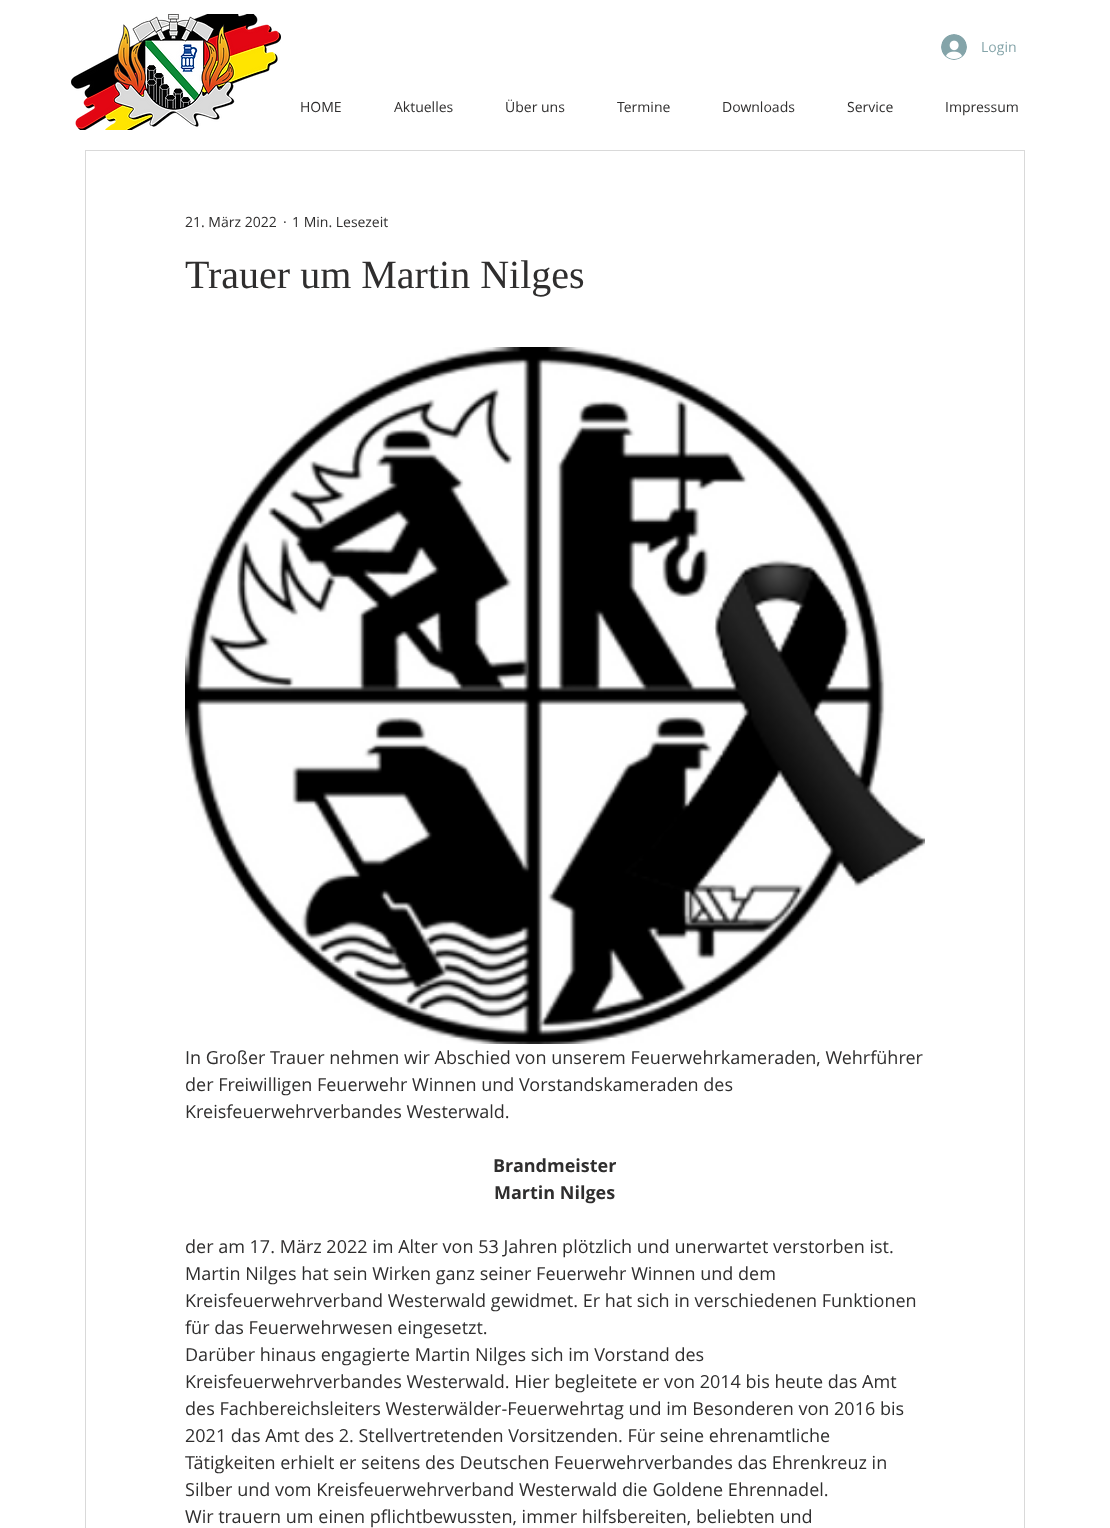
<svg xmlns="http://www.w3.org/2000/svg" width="1110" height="1528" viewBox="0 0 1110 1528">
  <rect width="100%" height="100%" fill="rgb(255,255,255)"/>
  <image x="71" y="14" width="210" height="116" href="pic1.png"/>
  <image x="941" y="34" width="26" height="26" href="pic2.png"/>
  <text x="981" y="52" font-family="Open Sans" font-size="14" fill="rgb(132,164,169)">Login</text>
  <g font-family="Open Sans" font-size="14" fill="rgb(47,46,46)">
    <text x="300" y="112">HOME</text>
    <text x="394" y="112">Aktuelles</text>
    <text x="505" y="112">Über uns</text>
    <text x="617" y="112">Termine</text>
    <text x="722" y="112">Downloads</text>
    <text x="847" y="112">Service</text>
    <text x="945" y="112">Impressum</text>
  </g>
  <rect x="85.5" y="150.5" width="939" height="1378" fill="none" stroke="rgb(217,217,217)"/>
  <g font-family="Open Sans" font-size="14" fill="rgb(47,46,46)">
    <text x="185" y="227">21. März 2022</text>
    <text x="283" y="227">·</text>
    <text x="292" y="227">1 Min. Lesezeit</text>
  </g>
  <text x="185" y="288" font-family="Liberation Serif" font-size="40" fill="rgb(47,46,46)">Trauer um Martin Nilges</text>
  <image x="185" y="347" width="740" height="697" href="pic3.png"/>
  <g font-family="Open Sans" font-size="18" fill="rgb(47,46,46)">
    <text>
      <tspan x="185" y="1064">In Großer Trauer nehmen wir Abschied von unserem Feuerwehrkameraden, Wehrführer</tspan>
      <tspan x="185" y="1091">der Freiwilligen Feuerwehr Winnen und Vorstandskameraden des</tspan>
      <tspan x="185" y="1118">Kreisfeuerwehrverbandes Westerwald.</tspan>
    </text>
  </g>
  <g font-family="Open Sans" font-size="18" font-weight="bold" fill="rgb(47,46,46)">
    <text x="493" y="1172">Brandmeister</text>
    <text x="494" y="1199">Martin Nilges</text>
  </g>
  <g font-family="Open Sans" font-size="18" fill="rgb(47,46,46)">
    <text>
      <tspan x="185" y="1253">der am 17. März 2022 im Alter von 53 Jahren plötzlich und unerwartet verstorben ist.</tspan>
      <tspan x="185" y="1280">Martin Nilges hat sein Wirken ganz seiner Feuerwehr Winnen und dem</tspan>
      <tspan x="185" y="1307">Kreisfeuerwehrverband Westerwald gewidmet. Er hat sich in verschiedenen Funktionen</tspan>
      <tspan x="185" y="1334">für das Feuerwehrwesen eingesetzt.</tspan>
      <tspan x="185" y="1361">Darüber hinaus engagierte Martin Nilges sich im Vorstand des</tspan>
      <tspan x="185" y="1388">Kreisfeuerwehrverbandes Westerwald. Hier begleitete er von 2014 bis heute das Amt</tspan>
      <tspan x="185" y="1415">des Fachbereichsleiters Westerwälder-Feuerwehrtag und im Besonderen von 2016 bis</tspan>
      <tspan x="185" y="1442">2021 das Amt des 2. Stellvertretenden Vorsitzenden. Für seine ehrenamtliche</tspan>
      <tspan x="185" y="1469">Tätigkeiten erhielt er seitens des Deutschen Feuerwehrverbandes das Ehrenkreuz in</tspan>
      <tspan x="185" y="1496">Silber und vom Kreisfeuerwehrverband Westerwald die Goldene Ehrennadel.</tspan>
      <tspan x="185" y="1523">Wir trauern um einen pflichtbewussten, immer hilfsbereiten, beliebten und</tspan>
    </text>
  </g>
</svg>
